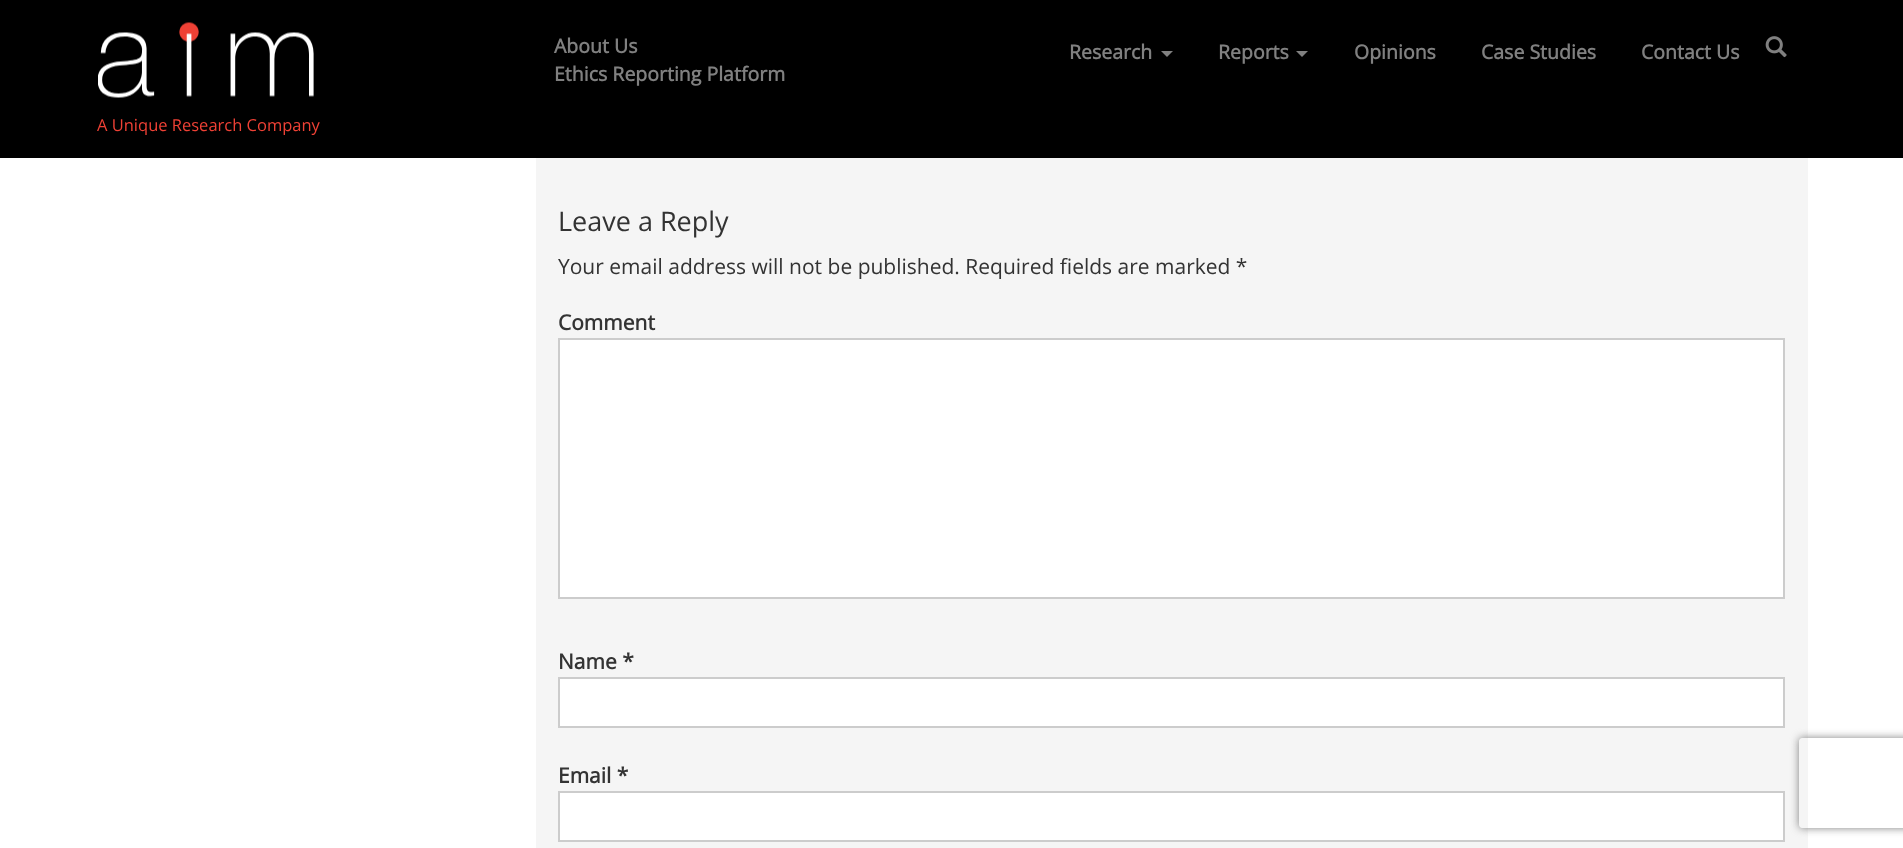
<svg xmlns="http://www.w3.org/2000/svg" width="1903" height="848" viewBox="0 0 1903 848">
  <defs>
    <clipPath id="clip1"><path d="M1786 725H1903V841H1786ZM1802 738H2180C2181.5 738 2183 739.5 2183 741V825C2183 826.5 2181.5 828 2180 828H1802C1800.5 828 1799 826.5 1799 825V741C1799 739.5 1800.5 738 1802 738Z" clip-rule="evenodd"/></clipPath>
  </defs>
  <rect width="100%" height="100%" fill="rgb(255,255,255)"/>
  <rect x="0" y="0" width="1903" height="158" fill="rgb(0,0,0)"/>
  <g font-family="Open Sans" font-size="19.5" font-weight="bold" fill="rgb(128,128,128)">
    <text>
      <tspan x="554" y="53">About Us</tspan>
      <tspan x="554" y="81">Ethics Reporting Platform</tspan>
    </text>
    <text x="1069" y="59">Research</text>
  </g>
  <path d="M1161 51H1173L1167 57Z" fill="rgb(128,128,128)"/>
  <text x="1218" y="59" font-family="Open Sans" font-size="19.5" font-weight="bold" fill="rgb(128,128,128)">Reports</text>
  <path d="M1296 51H1308L1302 57Z" fill="rgb(128,128,128)"/>
  <g font-family="Open Sans" font-size="19.5" font-weight="bold" fill="rgb(128,128,128)">
    <text x="1354" y="59">Opinions</text>
    <text x="1481" y="59">Case Studies</text>
    <text x="1641" y="59">Contact Us</text>
  </g>
  <image x="1765" y="36" width="22" height="22" href="pic1.png"/>
  <image x="98" y="22" width="216" height="76" href="pic2.png"/>
  <text x="97" y="131" font-family="Open Sans" font-size="16.5" fill="rgb(239,65,53)">A Unique Research Company</text>
  <rect x="536" y="158" width="1272" height="690" fill="rgb(245,245,245)"/>
  <text x="558" y="231" font-family="Open Sans" font-size="27" fill="rgb(51,51,51)">Leave a Reply</text>
  <text x="558" y="274" font-family="Open Sans" font-size="21" fill="rgb(51,51,51)">Your email address will not be published. Required fields are marked *</text>
  <text x="558" y="330" font-family="Open Sans" font-size="21" font-weight="bold" fill="rgb(51,51,51)">Comment</text>
  <rect x="559" y="339" width="1225" height="259" fill="rgb(255,255,255)" stroke="rgb(204,204,204)" stroke-width="2"/>
  <text x="558" y="669" font-family="Open Sans" font-size="21" font-weight="bold" fill="rgb(51,51,51)">Name *</text>
  <rect x="559" y="678" width="1225" height="49" fill="rgb(255,255,255)" stroke="rgb(204,204,204)" stroke-width="2"/>
  <text x="558" y="783" font-family="Open Sans" font-size="21" font-weight="bold" fill="rgb(51,51,51)">Email *</text>
  <rect x="559" y="792" width="1225" height="49" fill="rgb(255,255,255)" stroke="rgb(204,204,204)" stroke-width="2"/>
  <g clip-path="url(#clip1)">
    <rect x="1799" y="738" width="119" height="90" rx="3" fill="rgb(128,128,128)" filter="blur(4px)"/>
  </g>
</svg>
